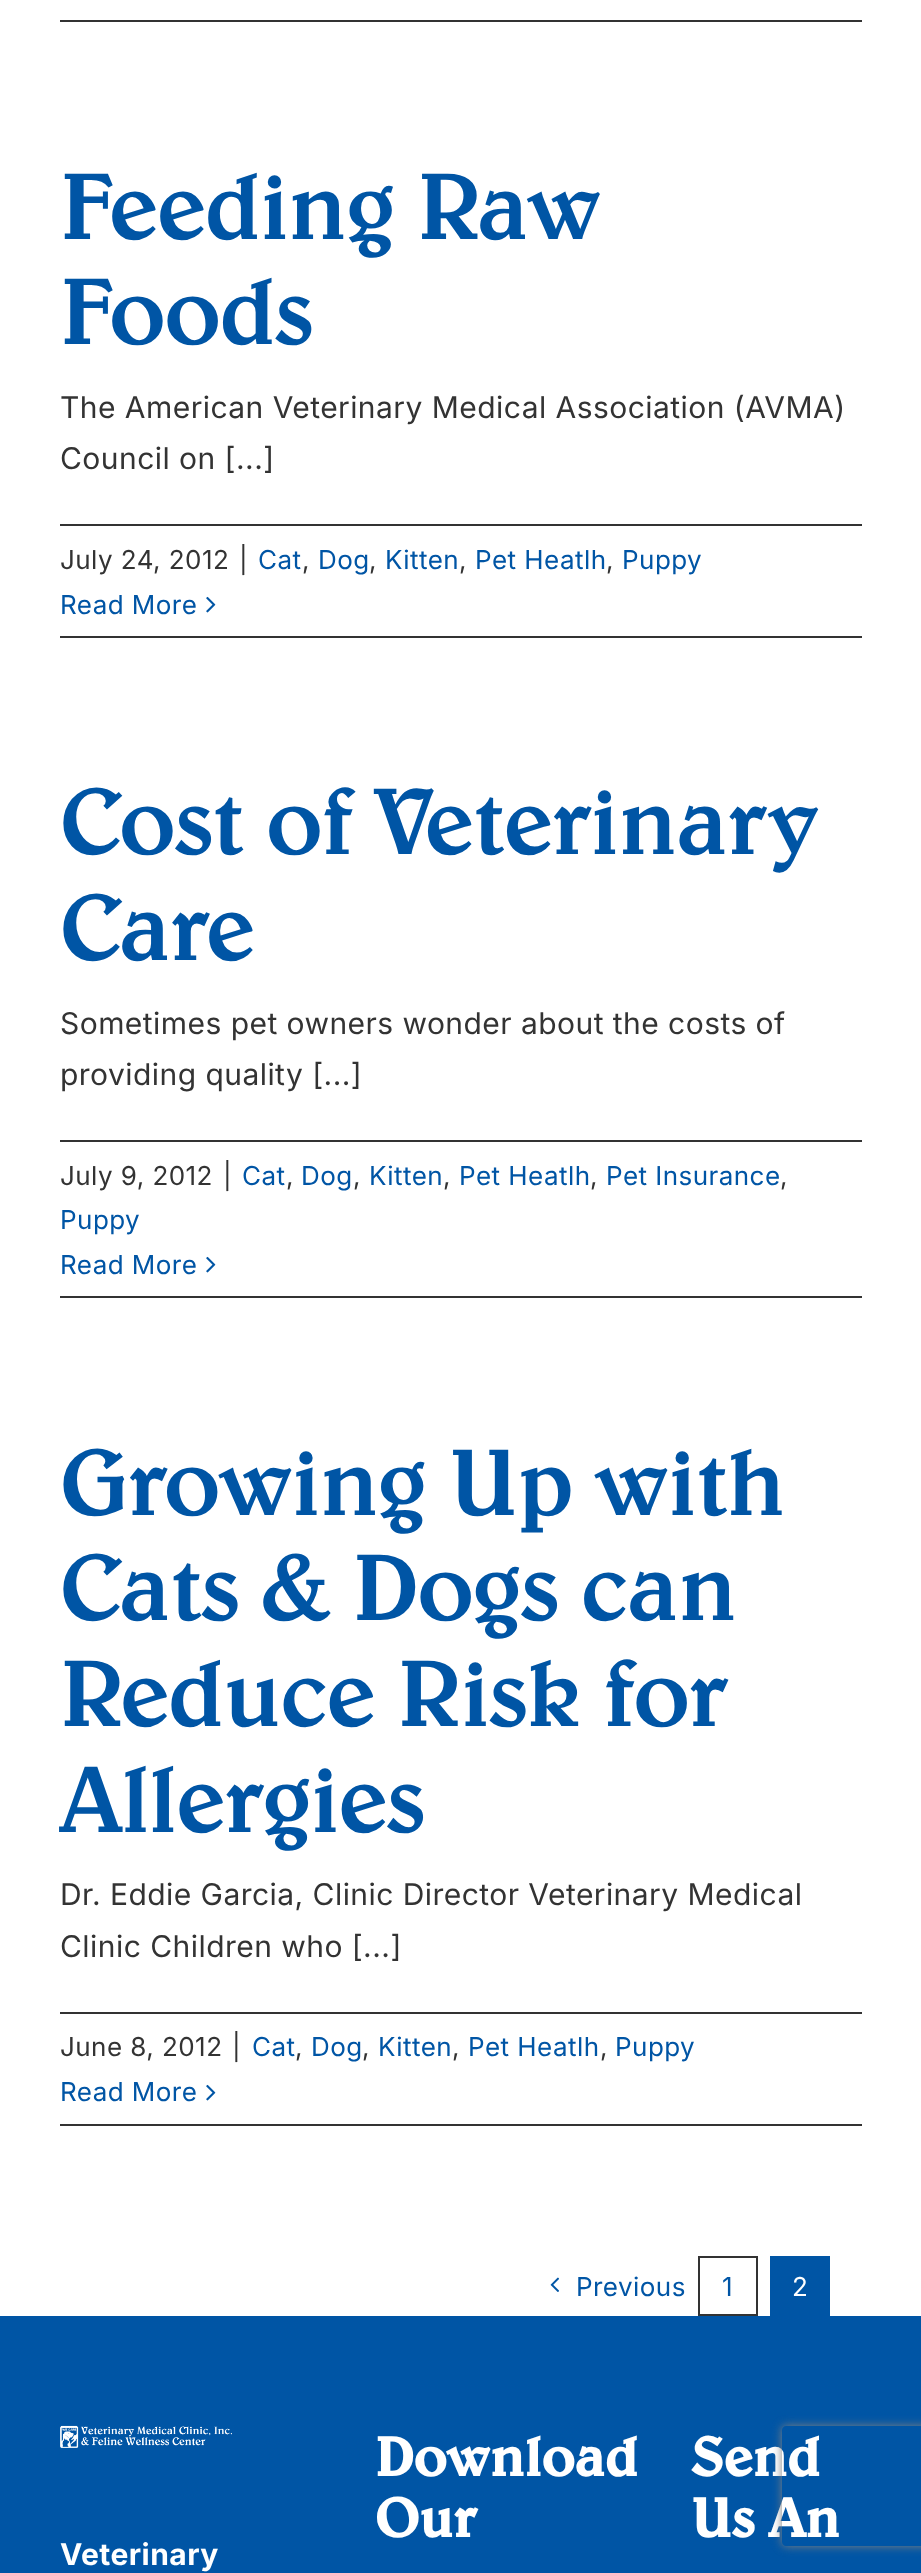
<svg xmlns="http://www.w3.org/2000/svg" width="921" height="2573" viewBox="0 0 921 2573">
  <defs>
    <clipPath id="clip1"><path d="M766 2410H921V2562H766ZM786 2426H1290C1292 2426 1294 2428 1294 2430V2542C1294 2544 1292 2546 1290 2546H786C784 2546 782 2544 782 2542V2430C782 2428 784 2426 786 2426Z" clip-rule="evenodd"/></clipPath>
  </defs>
  <rect width="100%" height="100%" fill="rgb(255,255,255)"/>
  <rect x="60" y="20" width="802" height="2" fill="rgb(51,51,51)"/>
  <g font-family="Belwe" font-size="96" font-weight="500" letter-spacing="-1.4" fill="rgb(0,85,165)">
    <text>
      <tspan x="60" y="239">Feeding Raw</tspan>
      <tspan x="60" y="344">Foods</tspan>
    </text>
  </g>
  <g font-family="Inter" font-size="30" letter-spacing="0.45" fill="rgb(51,51,51)">
    <text>
      <tspan x="60" y="418">The American Veterinary Medical Association (AVMA)</tspan>
      <tspan x="60" y="469">Council on [...]</tspan>
    </text>
  </g>
  <rect x="60" y="524" width="802" height="2" fill="rgb(51,51,51)"/>
  <rect x="60" y="636" width="802" height="2" fill="rgb(51,51,51)"/>
  <g font-family="Inter" font-size="26" letter-spacing="0.45" fill="rgb(51,51,51)">
    <text x="60" y="569">July 24, 2012</text>
    <text x="239" y="569">|</text>
  </g>
  <text x="258" y="569" font-family="Inter" font-size="26" letter-spacing="0.45" fill="rgb(0,85,165)">Cat</text>
  <text x="302" y="569" font-family="Inter" font-size="26" letter-spacing="0.45" fill="rgb(51,51,51)">,</text>
  <text x="318" y="569" font-family="Inter" font-size="26" letter-spacing="0.45" fill="rgb(0,85,165)">Dog</text>
  <text x="369" y="569" font-family="Inter" font-size="26" letter-spacing="0.45" fill="rgb(51,51,51)">,</text>
  <text x="385" y="569" font-family="Inter" font-size="26" letter-spacing="0.45" fill="rgb(0,85,165)">Kitten</text>
  <text x="459" y="569" font-family="Inter" font-size="26" letter-spacing="0.45" fill="rgb(51,51,51)">,</text>
  <text x="475" y="569" font-family="Inter" font-size="26" letter-spacing="0.45" fill="rgb(0,85,165)">Pet Heatlh</text>
  <text x="606" y="569" font-family="Inter" font-size="26" letter-spacing="0.45" fill="rgb(51,51,51)">,</text>
  <g font-family="Inter" font-size="26" letter-spacing="0.45" fill="rgb(0,85,165)">
    <text x="622" y="569">Puppy</text>
    <text x="60" y="614">Read More</text>
  </g>
  <image x="206" y="596" width="10" height="17" href="pic1.png"/>
  <g font-family="Belwe" font-size="96" font-weight="500" letter-spacing="-1.4" fill="rgb(0,85,165)">
    <text>
      <tspan x="60" y="854">Cost of Veterinary</tspan>
      <tspan x="60" y="960">Care</tspan>
    </text>
  </g>
  <g font-family="Inter" font-size="30" letter-spacing="0.45" fill="rgb(51,51,51)">
    <text>
      <tspan x="60" y="1034">Sometimes pet owners wonder about the costs of</tspan>
      <tspan x="60" y="1085">providing quality [...]</tspan>
    </text>
  </g>
  <rect x="60" y="1140" width="802" height="2" fill="rgb(51,51,51)"/>
  <rect x="60" y="1296" width="802" height="2" fill="rgb(51,51,51)"/>
  <g font-family="Inter" font-size="26" letter-spacing="0.45" fill="rgb(51,51,51)">
    <text x="60" y="1185">July 9, 2012</text>
    <text x="223" y="1185">|</text>
  </g>
  <text x="242" y="1185" font-family="Inter" font-size="26" letter-spacing="0.45" fill="rgb(0,85,165)">Cat</text>
  <text x="286" y="1185" font-family="Inter" font-size="26" letter-spacing="0.45" fill="rgb(51,51,51)">,</text>
  <text x="301" y="1185" font-family="Inter" font-size="26" letter-spacing="0.45" fill="rgb(0,85,165)">Dog</text>
  <text x="353" y="1185" font-family="Inter" font-size="26" letter-spacing="0.45" fill="rgb(51,51,51)">,</text>
  <text x="369" y="1185" font-family="Inter" font-size="26" letter-spacing="0.45" fill="rgb(0,85,165)">Kitten</text>
  <text x="443" y="1185" font-family="Inter" font-size="26" letter-spacing="0.45" fill="rgb(51,51,51)">,</text>
  <text x="459" y="1185" font-family="Inter" font-size="26" letter-spacing="0.45" fill="rgb(0,85,165)">Pet Heatlh</text>
  <text x="590" y="1185" font-family="Inter" font-size="26" letter-spacing="0.45" fill="rgb(51,51,51)">,</text>
  <text x="606" y="1185" font-family="Inter" font-size="26" letter-spacing="0.45" fill="rgb(0,85,165)">Pet Insurance</text>
  <text x="780" y="1185" font-family="Inter" font-size="26" letter-spacing="0.45" fill="rgb(51,51,51)">,</text>
  <g font-family="Inter" font-size="26" letter-spacing="0.45" fill="rgb(0,85,165)">
    <text>
      <tspan x="60" y="1229">Puppy</tspan>
      <tspan x="60" y="1274">Read More</tspan>
    </text>
  </g>
  <image x="206" y="1256" width="10" height="17" href="pic1.png"/>
  <g font-family="Belwe" font-size="96" font-weight="500" letter-spacing="-1.4" fill="rgb(0,85,165)">
    <text>
      <tspan x="60" y="1515">Growing Up with</tspan>
      <tspan x="60" y="1620">Cats &amp; Dogs can</tspan>
      <tspan x="60" y="1726">Reduce Risk for</tspan>
      <tspan x="60" y="1832">Allergies</tspan>
    </text>
  </g>
  <g font-family="Inter" font-size="30" letter-spacing="0.45" fill="rgb(51,51,51)">
    <text>
      <tspan x="60" y="1905">Dr. Eddie Garcia, Clinic Director Veterinary Medical</tspan>
      <tspan x="60" y="1957">Clinic Children who [...]</tspan>
    </text>
  </g>
  <rect x="60" y="2012" width="802" height="2" fill="rgb(51,51,51)"/>
  <rect x="60" y="2124" width="802" height="2" fill="rgb(51,51,51)"/>
  <g font-family="Inter" font-size="26" letter-spacing="0.45" fill="rgb(51,51,51)">
    <text x="60" y="2056">June 8, 2012</text>
    <text x="232" y="2056">|</text>
  </g>
  <text x="252" y="2056" font-family="Inter" font-size="26" letter-spacing="0.45" fill="rgb(0,85,165)">Cat</text>
  <text x="295" y="2056" font-family="Inter" font-size="26" letter-spacing="0.45" fill="rgb(51,51,51)">,</text>
  <text x="311" y="2056" font-family="Inter" font-size="26" letter-spacing="0.45" fill="rgb(0,85,165)">Dog</text>
  <text x="362" y="2056" font-family="Inter" font-size="26" letter-spacing="0.45" fill="rgb(51,51,51)">,</text>
  <text x="378" y="2056" font-family="Inter" font-size="26" letter-spacing="0.45" fill="rgb(0,85,165)">Kitten</text>
  <text x="452" y="2056" font-family="Inter" font-size="26" letter-spacing="0.45" fill="rgb(51,51,51)">,</text>
  <text x="468" y="2056" font-family="Inter" font-size="26" letter-spacing="0.45" fill="rgb(0,85,165)">Pet Heatlh</text>
  <text x="600" y="2056" font-family="Inter" font-size="26" letter-spacing="0.45" fill="rgb(51,51,51)">,</text>
  <g font-family="Inter" font-size="26" letter-spacing="0.45" fill="rgb(0,85,165)">
    <text x="615" y="2056">Puppy</text>
    <text x="60" y="2101">Read More</text>
  </g>
  <image x="206" y="2084" width="10" height="17" href="pic1.png"/>
  <image x="550" y="2277" width="9" height="15" href="pic2.png"/>
  <text x="576" y="2296" font-family="Inter" font-size="26" letter-spacing="0.45" fill="rgb(0,85,165)">Previous</text>
  <rect x="699" y="2257" width="58" height="58" fill="none" stroke="rgb(51,51,51)" stroke-width="2"/>
  <text x="722" y="2296" font-family="Inter" font-size="26" letter-spacing="0.45" fill="rgb(0,85,165)">1</text>
  <rect x="770" y="2256" width="60" height="60" fill="rgb(0,85,165)"/>
  <text x="792" y="2296" font-family="Inter" font-size="26" letter-spacing="0.45" fill="rgb(255,255,255)">2</text>
  <rect x="0" y="2316" width="921" height="257" fill="rgb(0,85,165)"/>
  <g font-family="Belwe" font-size="56" font-weight="bold" fill="rgb(255,255,255)">
    <text>
      <tspan x="375" y="2476">Download</tspan>
      <tspan x="375" y="2537">Our</tspan>
    </text>
    <text>
      <tspan x="691" y="2476">Send</tspan>
      <tspan x="691" y="2537">Us An</tspan>
    </text>
  </g>
  <image x="60" y="2425" width="172" height="23" href="pic3.png"/>
  <text x="60" y="2565" font-family="Inter" font-size="30" font-weight="bold" letter-spacing="0.45" fill="rgb(255,255,255)">Veterinary</text>
  <g clip-path="url(#clip1)">
    <rect x="782" y="2426" width="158" height="120" rx="4" fill="rgb(128,128,128)" filter="blur(5px)"/>
  </g>
</svg>
